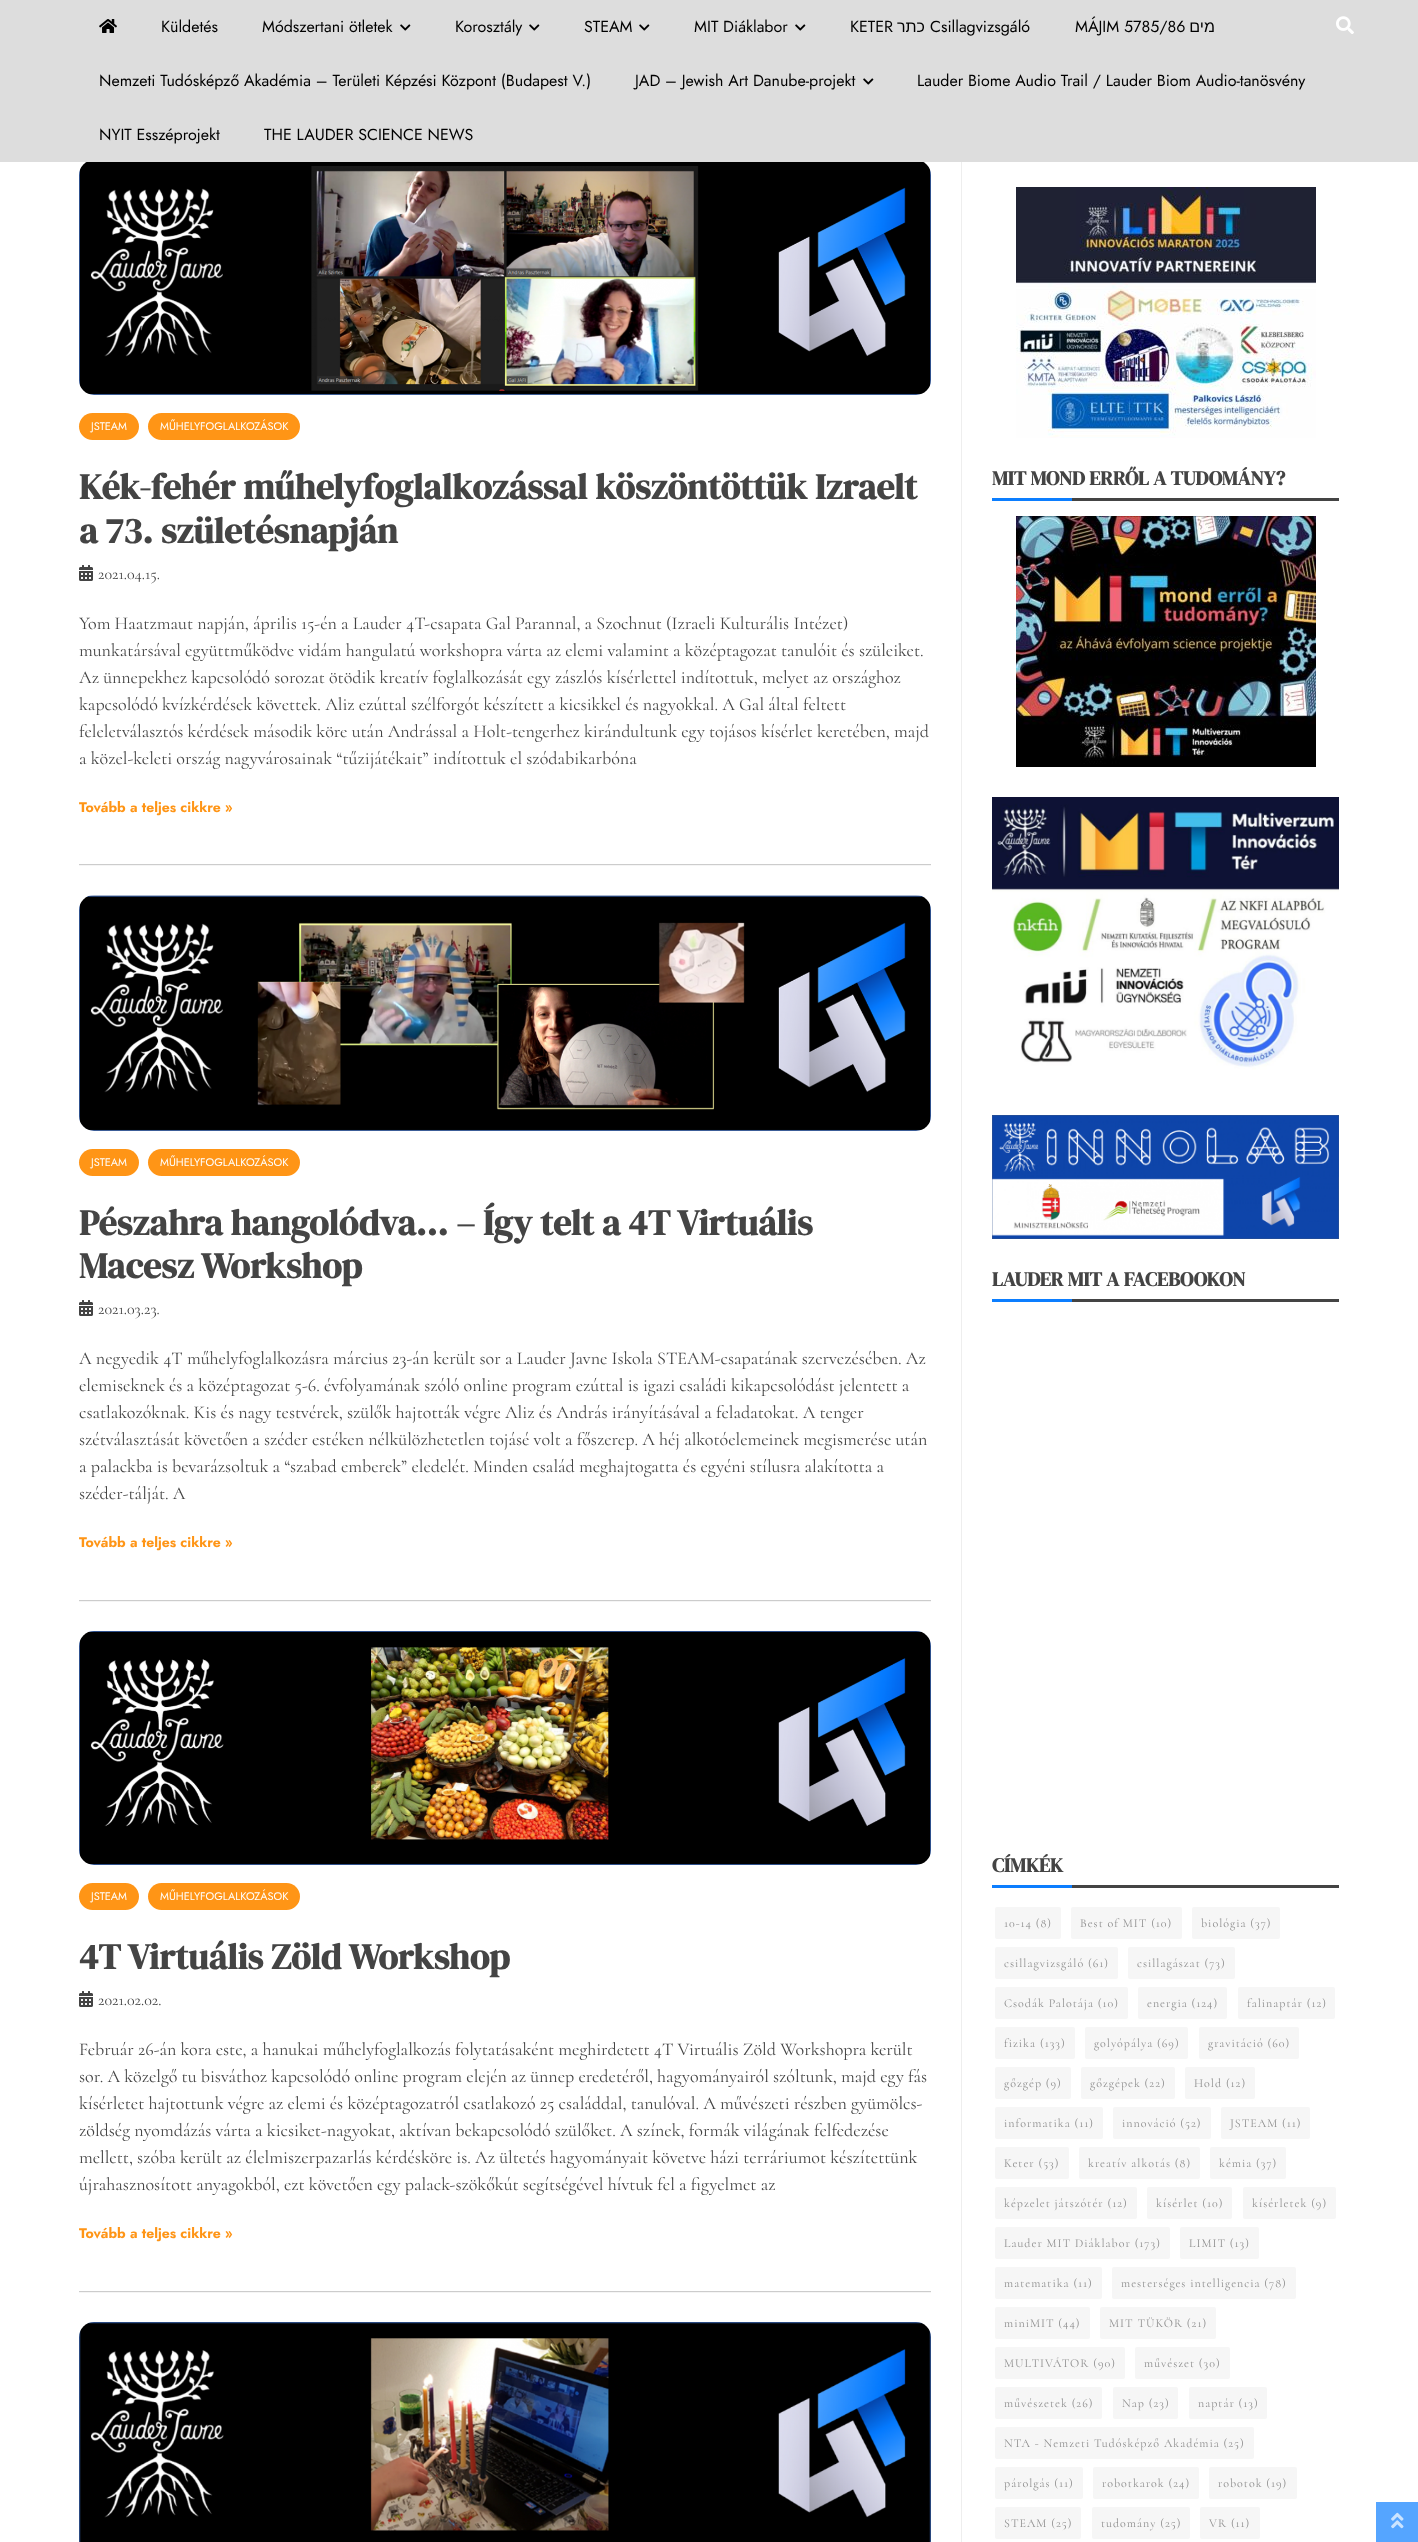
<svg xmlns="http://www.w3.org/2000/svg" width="1418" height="2542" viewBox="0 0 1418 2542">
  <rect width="100%" height="100%" fill="rgb(255,255,255)"/>
  <rect x="0" y="0" width="1418" height="162" fill="rgb(221,221,221)"/>
  <image x="99" y="19" width="18" height="14" href="pic1.png"/>
  <g font-family="Jost" font-size="16" fill="rgb(0,0,0)">
    <text x="161" y="32">Küldetés</text>
    <text x="262" y="32">Módszertani ötletek</text>
  </g>
  <image x="400" y="24" width="11" height="7" href="pic2.png"/>
  <text x="455" y="32" font-family="Jost" font-size="16" fill="rgb(0,0,0)">Korosztály</text>
  <image x="529" y="24" width="11" height="7" href="pic2.png"/>
  <text x="584" y="32" font-family="Jost" font-size="16" fill="rgb(0,0,0)">STEAM</text>
  <image x="639" y="24" width="11" height="7" href="pic2.png"/>
  <text x="694" y="32" font-family="Jost" font-size="16" fill="rgb(0,0,0)">MIT Diáklabor</text>
  <image x="795" y="24" width="11" height="7" href="pic2.png"/>
  <text x="850" y="32" font-family="Jost" font-size="16" fill="rgb(0,0,0)">KETER</text>
  <text x="925" y="32" font-family="Liberation Sans" font-size="16" direction="rtl" fill="rgb(0,0,0)">כתר</text>
  <g font-family="Jost" font-size="16" fill="rgb(0,0,0)">
    <text x="930" y="32">Csillagvizsgáló</text>
    <text x="1075" y="32">MÁJIM 5785/86</text>
  </g>
  <text x="1215" y="32" font-family="Liberation Sans" font-size="16" direction="rtl" fill="rgb(0,0,0)">מים</text>
  <g font-family="Jost" font-size="16" fill="rgb(0,0,0)">
    <text x="99" y="86">Nemzeti Tudósképző Akadémia – Területi Képzési Központ (Budapest V.)</text>
    <text x="635" y="86">JAD – Jewish Art Danube-projekt</text>
  </g>
  <image x="863" y="78" width="11" height="7" href="pic2.png"/>
  <g font-family="Jost" font-size="16" fill="rgb(0,0,0)">
    <text x="917" y="86">Lauder Biome Audio Trail / Lauder Biom Audio-tanösvény</text>
    <text x="99" y="140">NYIT Esszéprojekt</text>
    <text x="264" y="140">THE LAUDER SCIENCE NEWS</text>
  </g>
  <image x="1336" y="16" width="18" height="18" href="pic3.png"/>
  <rect x="79" y="865" width="852" height="1" fill="rgb(245,245,245)"/>
  <rect x="79" y="864" width="852" height="1" fill="rgb(204,204,204)"/>
  <image x="79" y="162" width="852" height="233" href="pic4.png"/>
  <rect x="79" y="413" width="60" height="27" rx="13.5" fill="rgb(255,149,22)"/>
  <text x="91" y="430" font-family="Jost" font-size="11" fill="rgb(255,255,255)">JSTEAM</text>
  <rect x="148" y="413" width="152" height="27" rx="13.5" fill="rgb(255,149,22)"/>
  <text x="160" y="430" font-family="Jost" font-size="11" fill="rgb(255,255,255)">MŰHELYFOGLALKOZÁSOK</text>
  <g font-family="DM Serif Display" font-size="36" font-weight="bold" fill="rgb(68,68,68)">
    <text>
      <tspan x="79" y="499">Kék-fehér műhelyfoglalkozással köszöntöttük Izraelt</tspan>
      <tspan x="79" y="543">a 73. születésnapján</tspan>
    </text>
  </g>
  <image x="79" y="565" width="14" height="16" href="pic5.png"/>
  <text x="98" y="579" font-family="Cormorant" font-size="16" fill="rgb(68,68,68)">2021.04.15.</text>
  <g font-family="Cormorant" font-size="18" fill="rgb(68,68,68)">
    <text>
      <tspan x="79" y="629">Yom Haatzmaut napján, április 15-én a Lauder 4T-csapata Gal Parannal, a Szochnut (Izraeli Kulturális Intézet)</tspan>
      <tspan x="79" y="656">munkatársával együttműködve vidám hangulatú workshopra várta az elemi valamint a középtagozat tanulóit és szüleiket.</tspan>
      <tspan x="79" y="683">Az ünnepekhez kapcsolódó sorozat ötödik kreatív foglalkozását egy zászlós kísérlettel indítottuk, melyet az országhoz</tspan>
      <tspan x="79" y="710">kapcsolódó kvízkérdések követtek. Aliz ezúttal szélforgót készített a kicsikkel és nagyokkal. A Gal által feltett</tspan>
      <tspan x="79" y="737">feleletválasztós kérdések második köre után Andrással a Holt-tengerhez kirándultunk egy tojásos kísérlet keretében, majd</tspan>
      <tspan x="79" y="764">a közel-keleti ország nagyvárosainak “tűzijátékait” indítottuk el szódabikarbóna</tspan>
    </text>
  </g>
  <text x="79" y="812" font-family="Jost" font-size="14" font-weight="bold" fill="rgb(255,149,22)">Tovább a teljes cikkre »</text>
  <rect x="79" y="1601" width="852" height="1" fill="rgb(245,245,245)"/>
  <rect x="79" y="1600" width="852" height="1" fill="rgb(204,204,204)"/>
  <image x="79" y="895" width="852" height="236" href="pic6.png"/>
  <rect x="79" y="1149" width="60" height="27" rx="13.5" fill="rgb(255,149,22)"/>
  <text x="91" y="1166" font-family="Jost" font-size="11" fill="rgb(255,255,255)">JSTEAM</text>
  <rect x="148" y="1149" width="152" height="27" rx="13.5" fill="rgb(255,149,22)"/>
  <text x="160" y="1166" font-family="Jost" font-size="11" fill="rgb(255,255,255)">MŰHELYFOGLALKOZÁSOK</text>
  <g font-family="DM Serif Display" font-size="36" font-weight="bold" fill="rgb(68,68,68)">
    <text>
      <tspan x="79" y="1235">Pészahra hangolódva… – Így telt a 4T Virtuális</tspan>
      <tspan x="79" y="1278">Macesz Workshop</tspan>
    </text>
  </g>
  <image x="79" y="1300" width="14" height="16" href="pic5.png"/>
  <text x="98" y="1314" font-family="Cormorant" font-size="16" fill="rgb(68,68,68)">2021.03.23.</text>
  <g font-family="Cormorant" font-size="18" fill="rgb(68,68,68)">
    <text>
      <tspan x="79" y="1364">A negyedik 4T műhelyfoglalkozásra március 23-án került sor a Lauder Javne Iskola STEAM-csapatának szervezésében. Az</tspan>
      <tspan x="79" y="1391">elemiseknek és a középtagozat 5-6. évfolyamának szóló online program ezúttal is igazi családi kikapcsolódást jelentett a</tspan>
      <tspan x="79" y="1418">csatlakozóknak. Kis és nagy testvérek, szülők hajtották végre Aliz és András irányításával a feladatokat. A tenger</tspan>
      <tspan x="79" y="1445">szétválasztását követően a széder estéken nélkülözhetetlen tojásé volt a főszerep. A héj alkotóelemeinek megismerése után</tspan>
      <tspan x="79" y="1472">a palackba is bevarázsoltuk a “szabad emberek” eledelét. Minden család meghajtogatta és egyéni stílusra alakította a</tspan>
      <tspan x="79" y="1499">széder-tálját. A</tspan>
    </text>
  </g>
  <text x="79" y="1547" font-family="Jost" font-size="14" font-weight="bold" fill="rgb(255,149,22)">Tovább a teljes cikkre »</text>
  <rect x="79" y="2292" width="852" height="1" fill="rgb(245,245,245)"/>
  <rect x="79" y="2291" width="852" height="1" fill="rgb(204,204,204)"/>
  <image x="79" y="1631" width="852" height="234" href="pic7.png"/>
  <rect x="79" y="1883" width="60" height="27" rx="13.5" fill="rgb(255,149,22)"/>
  <text x="91" y="1900" font-family="Jost" font-size="11" fill="rgb(255,255,255)">JSTEAM</text>
  <rect x="148" y="1883" width="152" height="27" rx="13.5" fill="rgb(255,149,22)"/>
  <text x="160" y="1900" font-family="Jost" font-size="11" fill="rgb(255,255,255)">MŰHELYFOGLALKOZÁSOK</text>
  <text x="79" y="1969" font-family="DM Serif Display" font-size="36" font-weight="bold" fill="rgb(68,68,68)">4T Virtuális Zöld Workshop</text>
  <image x="79" y="1991" width="14" height="16" href="pic5.png"/>
  <text x="98" y="2005" font-family="Cormorant" font-size="16" fill="rgb(68,68,68)">2021.02.02.</text>
  <g font-family="Cormorant" font-size="18" fill="rgb(68,68,68)">
    <text>
      <tspan x="79" y="2055">Február 26-án kora este, a hanukai műhelyfoglalkozás folytatásaként meghirdetett 4T Virtuális Zöld Workshopra került</tspan>
      <tspan x="79" y="2082">sor. A közelgő tu bisváthoz kapcsolódó online program elején az ünnep eredetéről, hagyományairól szóltunk, majd egy fás</tspan>
      <tspan x="79" y="2109">kísérletet hajtottunk végre az elemi és középtagozatról csatlakozó 25 családdal, tanulóval. A művészeti részben gyümölcs-</tspan>
      <tspan x="79" y="2136">zöldség nyomdázás várta a kicsiket-nagyokat, aktívan bekapcsolódó szülőket. A színek, formák világának felfedezése</tspan>
      <tspan x="79" y="2163">mellett, szóba került az élelmiszerpazarlás kérdésköre is. Az ültetés hagyományait követve házi terráriumot készítettünk</tspan>
      <tspan x="79" y="2190">újrahasznosított anyagokból, ezt követően egy palack-szökőkút segítségével hívtuk fel a figyelmet az</tspan>
    </text>
  </g>
  <text x="79" y="2238" font-family="Jost" font-size="14" font-weight="bold" fill="rgb(255,149,22)">Tovább a teljes cikkre »</text>
  <image x="79" y="2322" width="852" height="220" href="pic8.png"/>
  <rect x="961" y="162" width="1" height="2380" fill="rgb(238,238,238)"/>
  <image x="1016" y="187" width="300" height="251" href="pic9.png"/>
  <rect x="1072" y="498" width="267" height="3" fill="rgb(68,68,68)"/>
  <text x="992" y="485" font-family="DM Serif Display" font-size="20" font-weight="bold" fill="rgb(68,68,68)">MIT MOND ERRŐL A TUDOMÁNY?</text>
  <rect x="992" y="498" width="80" height="3" fill="rgb(12,126,255)"/>
  <image x="1016" y="516" width="300" height="251" href="pic10.png"/>
  <image x="992" y="797" width="347" height="273" href="pic11.png"/>
  <image x="992" y="1115" width="347" height="124" href="pic12.png"/>
  <rect x="1072" y="1299" width="267" height="3" fill="rgb(68,68,68)"/>
  <text x="992" y="1286" font-family="DM Serif Display" font-size="20" font-weight="bold" fill="rgb(68,68,68)">LAUDER MIT A FACEBOOKON</text>
  <rect x="992" y="1299" width="80" height="3" fill="rgb(12,126,255)"/>
  <rect x="1072" y="1885" width="267" height="3" fill="rgb(68,68,68)"/>
  <text x="992" y="1872" font-family="DM Serif Display" font-size="20" font-weight="bold" fill="rgb(68,68,68)">CÍMKÉK</text>
  <rect x="992" y="1885" width="80" height="3" fill="rgb(12,126,255)"/>
  <rect x="995" y="1907" width="66" height="32" rx="2" fill="rgb(246,246,246)"/>
  <text x="1004" y="1927" font-family="Cormorant" font-size="12" letter-spacing="1" fill="rgb(141,141,141)">10-14 (8)</text>
  <rect x="1071" y="1907" width="111" height="32" rx="2" fill="rgb(246,246,246)"/>
  <text x="1080" y="1927" font-family="Cormorant" font-size="12" letter-spacing="1" fill="rgb(141,141,141)">Best of MIT (10)</text>
  <rect x="1192" y="1907" width="88" height="32" rx="2" fill="rgb(246,246,246)"/>
  <text x="1201" y="1927" font-family="Cormorant" font-size="12" letter-spacing="1" fill="rgb(141,141,141)">biológia (37)</text>
  <rect x="995" y="1947" width="123" height="32" rx="2" fill="rgb(246,246,246)"/>
  <text x="1004" y="1967" font-family="Cormorant" font-size="12" letter-spacing="1" fill="rgb(141,141,141)">csillagvizsgáló (61)</text>
  <rect x="1128" y="1947" width="107" height="32" rx="2" fill="rgb(246,246,246)"/>
  <text x="1137" y="1967" font-family="Cormorant" font-size="12" letter-spacing="1" fill="rgb(141,141,141)">csillagászat (73)</text>
  <rect x="995" y="1987" width="133" height="32" rx="2" fill="rgb(246,246,246)"/>
  <text x="1004" y="2007" font-family="Cormorant" font-size="12" letter-spacing="1" fill="rgb(141,141,141)">Csodák Palotája (10)</text>
  <rect x="1138" y="1987" width="89" height="32" rx="2" fill="rgb(246,246,246)"/>
  <text x="1147" y="2007" font-family="Cormorant" font-size="12" letter-spacing="1" fill="rgb(141,141,141)">energia (124)</text>
  <rect x="1238" y="1987" width="97" height="32" rx="2" fill="rgb(246,246,246)"/>
  <text x="1247" y="2007" font-family="Cormorant" font-size="12" letter-spacing="1" fill="rgb(141,141,141)">falinaptár (12)</text>
  <rect x="995" y="2027" width="80" height="32" rx="2" fill="rgb(246,246,246)"/>
  <g font-family="Cormorant" font-size="12" letter-spacing="1" fill="rgb(141,141,141)">
    <text x="1004" y="2047">fizika</text>
    <text x="1040" y="2047">(133)</text>
  </g>
  <rect x="1085" y="2027" width="103" height="32" rx="2" fill="rgb(246,246,246)"/>
  <text x="1094" y="2047" font-family="Cormorant" font-size="12" letter-spacing="1" fill="rgb(141,141,141)">golyópálya (69)</text>
  <rect x="1199" y="2027" width="100" height="32" rx="2" fill="rgb(246,246,246)"/>
  <text x="1208" y="2047" font-family="Cormorant" font-size="12" letter-spacing="1" fill="rgb(141,141,141)">gravitáció (60)</text>
  <rect x="995" y="2067" width="76" height="32" rx="2" fill="rgb(246,246,246)"/>
  <text x="1004" y="2087" font-family="Cormorant" font-size="12" letter-spacing="1" fill="rgb(141,141,141)">gőzgép (9)</text>
  <rect x="1081" y="2067" width="94" height="32" rx="2" fill="rgb(246,246,246)"/>
  <text x="1090" y="2087" font-family="Cormorant" font-size="12" letter-spacing="1" fill="rgb(141,141,141)">gőzgépek (22)</text>
  <rect x="1185" y="2067" width="70" height="32" rx="2" fill="rgb(246,246,246)"/>
  <text x="1194" y="2087" font-family="Cormorant" font-size="12" letter-spacing="1" fill="rgb(141,141,141)">Hold (12)</text>
  <rect x="995" y="2107" width="108" height="32" rx="2" fill="rgb(246,246,246)"/>
  <text x="1004" y="2127" font-family="Cormorant" font-size="12" letter-spacing="1" fill="rgb(141,141,141)">informatika (11)</text>
  <rect x="1113" y="2107" width="98" height="32" rx="2" fill="rgb(246,246,246)"/>
  <text x="1122" y="2127" font-family="Cormorant" font-size="12" letter-spacing="1" fill="rgb(141,141,141)">innováció (52)</text>
  <rect x="1221" y="2107" width="89" height="32" rx="2" fill="rgb(246,246,246)"/>
  <text x="1230" y="2127" font-family="Cormorant" font-size="12" letter-spacing="1" fill="rgb(141,141,141)">JSTEAM (11)</text>
  <rect x="995" y="2147" width="74" height="32" rx="2" fill="rgb(246,246,246)"/>
  <text x="1004" y="2167" font-family="Cormorant" font-size="12" letter-spacing="1" fill="rgb(141,141,141)">Keter (53)</text>
  <rect x="1079" y="2147" width="121" height="32" rx="2" fill="rgb(246,246,246)"/>
  <text x="1088" y="2167" font-family="Cormorant" font-size="12" letter-spacing="1" fill="rgb(141,141,141)">kreatív alkotás (8)</text>
  <rect x="1210" y="2147" width="76" height="32" rx="2" fill="rgb(246,246,246)"/>
  <text x="1219" y="2167" font-family="Cormorant" font-size="12" letter-spacing="1" fill="rgb(141,141,141)">kémia (37)</text>
  <rect x="995" y="2187" width="142" height="32" rx="2" fill="rgb(246,246,246)"/>
  <text x="1004" y="2207" font-family="Cormorant" font-size="12" letter-spacing="1" fill="rgb(141,141,141)">képzelet játszótér (12)</text>
  <rect x="1147" y="2187" width="85" height="32" rx="2" fill="rgb(246,246,246)"/>
  <text x="1156" y="2207" font-family="Cormorant" font-size="12" letter-spacing="1" fill="rgb(141,141,141)">kísérlet (10)</text>
  <rect x="1243" y="2187" width="93" height="32" rx="2" fill="rgb(246,246,246)"/>
  <text x="1252" y="2207" font-family="Cormorant" font-size="12" letter-spacing="1" fill="rgb(141,141,141)">kísérletek (9)</text>
  <rect x="995" y="2227" width="175" height="32" rx="2" fill="rgb(246,246,246)"/>
  <text x="1004" y="2247" font-family="Cormorant" font-size="12" letter-spacing="1" fill="rgb(141,141,141)">Lauder MIT Diáklabor (173)</text>
  <rect x="1180" y="2227" width="79" height="32" rx="2" fill="rgb(246,246,246)"/>
  <text x="1189" y="2247" font-family="Cormorant" font-size="12" letter-spacing="1" fill="rgb(141,141,141)">LIMIT (13)</text>
  <rect x="995" y="2267" width="107" height="32" rx="2" fill="rgb(246,246,246)"/>
  <text x="1004" y="2287" font-family="Cormorant" font-size="12" letter-spacing="1" fill="rgb(141,141,141)">matematika (11)</text>
  <rect x="1112" y="2267" width="184" height="32" rx="2" fill="rgb(246,246,246)"/>
  <text x="1121" y="2287" font-family="Cormorant" font-size="12" letter-spacing="1" fill="rgb(141,141,141)">mesterséges intelligencia (78)</text>
  <rect x="995" y="2307" width="95" height="32" rx="2" fill="rgb(246,246,246)"/>
  <text x="1004" y="2327" font-family="Cormorant" font-size="12" letter-spacing="1" fill="rgb(141,141,141)">miniMIT (44)</text>
  <rect x="1100" y="2307" width="116" height="32" rx="2" fill="rgb(246,246,246)"/>
  <text x="1109" y="2327" font-family="Cormorant" font-size="12" letter-spacing="1" fill="rgb(141,141,141)">MIT TÜKÖR (21)</text>
  <rect x="995" y="2347" width="130" height="32" rx="2" fill="rgb(246,246,246)"/>
  <text x="1004" y="2367" font-family="Cormorant" font-size="12" letter-spacing="1" fill="rgb(141,141,141)">MULTIVÁTOR (90)</text>
  <rect x="1135" y="2347" width="95" height="32" rx="2" fill="rgb(246,246,246)"/>
  <text x="1144" y="2367" font-family="Cormorant" font-size="12" letter-spacing="1" fill="rgb(141,141,141)">művészet (30)</text>
  <rect x="995" y="2387" width="107" height="32" rx="2" fill="rgb(246,246,246)"/>
  <text x="1004" y="2407" font-family="Cormorant" font-size="12" letter-spacing="1" fill="rgb(141,141,141)">művészetek (26)</text>
  <rect x="1113" y="2387" width="65" height="32" rx="2" fill="rgb(246,246,246)"/>
  <text x="1122" y="2407" font-family="Cormorant" font-size="12" letter-spacing="1" fill="rgb(141,141,141)">Nap (23)</text>
  <rect x="1189" y="2387" width="78" height="32" rx="2" fill="rgb(246,246,246)"/>
  <text x="1198" y="2407" font-family="Cormorant" font-size="12" letter-spacing="1" fill="rgb(141,141,141)">naptár (13)</text>
  <rect x="995" y="2427" width="259" height="32" rx="2" fill="rgb(246,246,246)"/>
  <text x="1004" y="2447" font-family="Cormorant" font-size="12" letter-spacing="1" fill="rgb(141,141,141)">NTA - Nemzeti Tudósképző Akadémia (25)</text>
  <rect x="995" y="2467" width="88" height="32" rx="2" fill="rgb(246,246,246)"/>
  <text x="1004" y="2487" font-family="Cormorant" font-size="12" letter-spacing="1" fill="rgb(141,141,141)">párolgás (11)</text>
  <rect x="1093" y="2467" width="106" height="32" rx="2" fill="rgb(246,246,246)"/>
  <text x="1102" y="2487" font-family="Cormorant" font-size="12" letter-spacing="1" fill="rgb(141,141,141)">robotkarok (24)</text>
  <rect x="1209" y="2467" width="88" height="32" rx="2" fill="rgb(246,246,246)"/>
  <text x="1218" y="2487" font-family="Cormorant" font-size="12" letter-spacing="1" fill="rgb(141,141,141)">robotok (19)</text>
  <rect x="995" y="2507" width="86" height="32" rx="2" fill="rgb(246,246,246)"/>
  <text x="1004" y="2527" font-family="Cormorant" font-size="12" letter-spacing="1" fill="rgb(141,141,141)">STEAM (25)</text>
  <rect x="1092" y="2507" width="98" height="32" rx="2" fill="rgb(246,246,246)"/>
  <text x="1101" y="2527" font-family="Cormorant" font-size="12" letter-spacing="1" fill="rgb(141,141,141)">tudomány (25)</text>
  <rect x="1200" y="2507" width="60" height="32" rx="2" fill="rgb(246,246,246)"/>
  <text x="1209" y="2527" font-family="Cormorant" font-size="12" letter-spacing="1" fill="rgb(141,141,141)">VR (11)</text>
  <rect x="1376" y="2502" width="42" height="40" fill="rgb(85,165,255)"/>
  <image x="1391" y="2512" width="13" height="17" href="pic13.png"/>
</svg>
